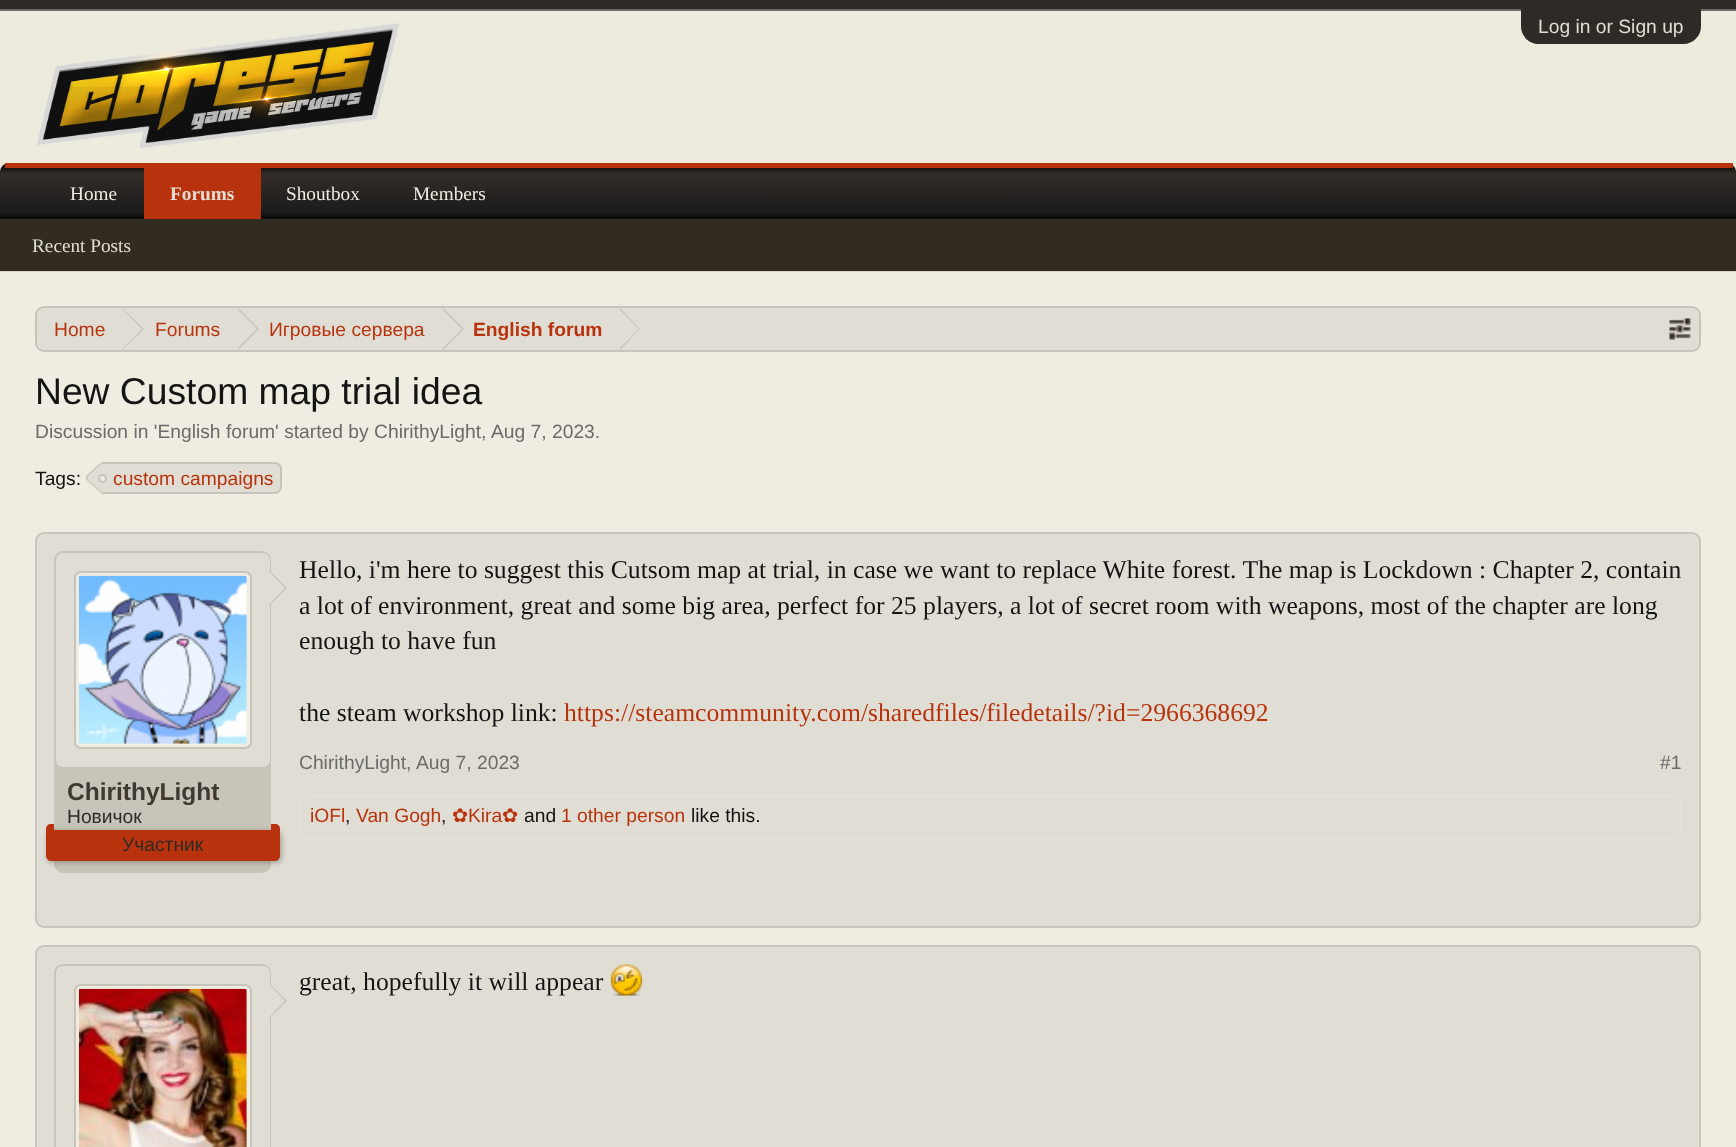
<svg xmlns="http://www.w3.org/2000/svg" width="1736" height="1147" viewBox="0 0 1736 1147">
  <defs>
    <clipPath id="clip1"><path d="M9 163H1727C1732 163 1736 167 1736 172V221H0V172C0 167 4 163 9 163Z"/></clipPath>
    <linearGradient id="g1" gradientUnits="userSpaceOnUse" x1="868" y1="115" x2="868" y2="168"><stop offset="0" stop-color="rgb(22,19,15)"/><stop offset="0.07" stop-color="rgb(40,36,32)"/><stop offset="0.11" stop-color="rgb(50,45,39)"/><stop offset="0.84" stop-color="rgb(28,27,28)"/><stop offset="0.93" stop-color="rgb(11,11,11)"/><stop offset="1" stop-color="rgb(27,28,29)"/></linearGradient>
    <linearGradient id="g2" gradientUnits="userSpaceOnUse" x1="868" y1="168" x2="868" y2="221"><stop offset="0" stop-color="rgb(22,19,15)"/><stop offset="0.07" stop-color="rgb(40,36,32)"/><stop offset="0.11" stop-color="rgb(50,45,39)"/><stop offset="0.84" stop-color="rgb(28,27,28)"/><stop offset="0.93" stop-color="rgb(11,11,11)"/><stop offset="1" stop-color="rgb(27,28,29)"/></linearGradient>
    <clipPath id="clip2"><rect x="37" y="308" width="1662" height="42" rx="7"/></clipPath>
    <clipPath id="clip3"><rect x="67" y="777" width="192" height="28"/></clipPath>
  </defs>
  <rect width="100%" height="100%" fill="rgb(239,237,225)"/>
  <rect x="0" y="0" width="1736" height="9" fill="rgb(46,42,38)"/>
  <rect x="0" y="9" width="1736" height="2" fill="rgb(107,107,106)"/>
  <rect x="0" y="11" width="1736" height="161" fill="rgb(236,235,221)"/>
  <path d="M1521 9H1701V26.5C1701 36 1693 44 1683.5 44H1538.5C1529 44 1521 36 1521 26.5Z" fill="rgb(46,42,38)"/>
  <text x="1538" y="33" font-family="Liberation Sans" font-size="19.25" fill="rgb(224,222,212)">Log in or Sign up</text>
  <image x="0" y="271" width="1736" height="1" href="pic1.png"/>
  <image x="37" y="23" width="363" height="125" href="pic2.png"/>
  <g clip-path="url(#clip1)">
    <rect x="0" y="164" width="1736" height="4" fill="url(#g1)"/>
    <rect x="0" y="168" width="1736" height="51" fill="url(#g2)"/>
  </g>
  <rect x="5" y="163" width="1728" height="5" fill="rgb(184,51,13)"/>
  <rect x="144" y="168" width="117" height="51" fill="rgb(184,51,13)"/>
  <text x="170" y="200" font-family="Liberation Serif" font-size="19.25" font-weight="bold" fill="rgb(224,222,212)">Forums</text>
  <rect x="0" y="219" width="1736" height="52" fill="rgb(50,43,34)"/>
  <text x="32" y="252" font-family="Liberation Serif" font-size="19.25" fill="rgb(224,222,212)">Recent Posts</text>
  <g font-family="Liberation Serif" font-size="19.25" fill="rgb(239,237,225)">
    <text x="286" y="200">Shoutbox</text>
    <text x="413" y="200">Members</text>
    <text x="70" y="200">Home</text>
  </g>
  <rect x="36" y="307" width="1664" height="44" rx="8" fill="rgb(224,222,212)" stroke="rgb(199,197,186)" stroke-width="2"/>
  <g clip-path="url(#clip2)">
    <path d="M46 308H123V352H46C41 352 37 348 37 343V317C37 312 41 308 46 308Z" fill="rgb(224,222,212)"/>
  </g>
  <text x="54" y="336" font-family="Liberation Sans" font-size="19.25" fill="rgb(184,51,13)">Home</text>
  <path d="M122 350V308L144 329Z" fill="rgb(199,197,186)"/>
  <path d="M121 350V308L142 329Z" fill="rgb(224,222,212)"/>
  <text x="155" y="336" font-family="Liberation Sans" font-size="19.25" fill="rgb(184,51,13)">Forums</text>
  <path d="M238 350V308L259 329Z" fill="rgb(199,197,186)"/>
  <path d="M236 350V308L257 329Z" fill="rgb(224,222,212)"/>
  <text x="269" y="336" font-family="Liberation Sans" font-size="19.25" fill="rgb(184,51,13)">Игровые сервера</text>
  <path d="M443 350V308L464 329Z" fill="rgb(199,197,186)"/>
  <path d="M441 350V308L462 329Z" fill="rgb(224,222,212)"/>
  <text x="473" y="336" font-family="Liberation Sans" font-size="19.25" font-weight="bold" fill="rgb(184,51,13)">English forum</text>
  <path d="M620 350V308L640 329Z" fill="rgb(199,197,186)"/>
  <path d="M618 350V308L639 329Z" fill="rgb(224,222,212)"/>
  <image x="1669" y="318" width="22" height="22" href="pic3.png"/>
  <text x="35" y="404" font-family="Liberation Sans" font-size="37.25" fill="rgb(20,20,20)">New Custom map trial idea</text>
  <g font-family="Liberation Sans" font-size="19.25" fill="rgb(107,107,106)">
    <text x="35" y="438">Discussion in 'English forum' started by ChirithyLight,</text>
    <text x="491" y="438">Aug 7, 2023.</text>
  </g>
  <text x="35" y="485" font-family="Liberation Sans" font-size="19.25" fill="rgb(20,20,20)">Tags:</text>
  <path d="M102 462H275C279 462 282 465 282 469V487C282 491 279 494 275 494H102Z" fill="rgb(224,222,212)"/>
  <path d="M102 462H275C279 462 282 465 282 469V486C282 490 279 494 275 494H102ZM102 464H275C278 464 280 466 280 469V486C280 489 278 492 275 492H102Z" fill="rgb(199,197,186)" fill-rule="evenodd"/>
  <path d="M101.5 462V493.5L86 479.5V476Z" fill="rgb(199,197,186)"/>
  <path d="M101.5 464V492L87.5 479.5V476Z" fill="rgb(224,222,212)"/>
  <circle cx="102.5" cy="478.5" r="3.5" fill="rgb(239,237,225)" stroke="rgb(199,197,186)" stroke-width="2"/>
  <text x="113" y="485" font-family="Liberation Sans" font-size="19.25" fill="rgb(184,51,13)">custom campaigns</text>
  <rect x="36" y="533" width="1664" height="394" rx="8" fill="rgb(224,222,212)" stroke="rgb(199,197,188)" stroke-width="2"/>
  <rect x="55" y="552" width="215" height="320" rx="8" fill="rgb(199,197,186)" stroke="rgb(199,197,186)" stroke-width="2"/>
  <rect x="56" y="553" width="214" height="214" rx="7" fill="rgb(224,222,212)"/>
  <rect x="75" y="572" width="176" height="176" rx="6" fill="rgb(239,237,225)" stroke="rgb(199,197,186)" stroke-width="2"/>
  <image x="78" y="575" width="169" height="169" href="pic4.png"/>
  <path d="M269.5 605.5V570.5L287 588Z" fill="rgb(199,197,186)"/>
  <path d="M268 605.5V570.5L285 588Z" fill="rgb(224,222,212)"/>
  <g clip-path="url(#clip3)">
    <text x="67" y="800" font-family="Liberation Sans" font-size="24.5" font-weight="bold" fill="rgb(64,57,49)">ChirithyLight</text>
  </g>
  <text x="67" y="823" font-family="Liberation Sans" font-size="19.25" fill="rgb(46,42,38)">Новичок</text>
  <rect x="47" y="831" width="235" height="32" rx="5" fill="rgba(0,0,0,0.25)" filter="blur(2.5px)"/>
  <path d="M47 831H279V856C279 858 277 860 275 860H51C49 860 47 858 47 856Z" fill="rgb(184,51,13)" stroke="rgb(184,51,13)" stroke-width="2"/>
  <path d="M51 824H54V831H46V829C46 826 48 824 51 824Z" fill="rgb(184,51,13)"/>
  <path d="M271 824H275C278 824 280 826 280 829V831H271Z" fill="rgb(184,51,13)"/>
  <text x="122" y="851" font-family="Liberation Sans" font-size="19.25" fill="rgb(46,42,38)">Участник</text>
  <g font-family="Liberation Serif" font-size="25.67" fill="rgb(20,20,20)">
    <text>
      <tspan x="299" y="578">Hello, i'm here to suggest this Cutsom map at trial, in case we want to replace White forest. The map is Lockdown : Chapter 2, contain</tspan>
      <tspan x="299" y="614">a lot of environment, great and some big area, perfect for 25 players, a lot of secret room with weapons, most of the chapter are long</tspan>
      <tspan x="299" y="649">enough to have fun</tspan>
    </text>
    <text x="299" y="721">the steam workshop link:</text>
  </g>
  <text x="564" y="721" font-family="Liberation Serif" font-size="25.67" fill="rgb(184,51,13)">https://steamcommunity.com/sharedfiles/filedetails/?id=2966368692</text>
  <g font-family="Liberation Sans" font-size="19.25" fill="rgb(107,107,106)">
    <text x="299" y="769">ChirithyLight,</text>
    <text x="416" y="769">Aug 7, 2023</text>
    <text x="1660" y="769">#1</text>
  </g>
  <rect x="300" y="796" width="1381" height="43" rx="8" fill="none" stroke="rgb(227,225,215)" stroke-width="2"/>
  <text x="310" y="822" font-family="Liberation Sans" font-size="19.25" fill="rgb(184,51,13)">iOFl</text>
  <text x="345" y="822" font-family="Liberation Sans" font-size="19.25" fill="rgb(20,20,20)">,</text>
  <text x="356" y="822" font-family="Liberation Sans" font-size="19.25" fill="rgb(184,51,13)">Van Gogh</text>
  <text x="441" y="822" font-family="Liberation Sans" font-size="19.25" fill="rgb(20,20,20)">,</text>
  <text x="452" y="822" font-family="DejaVu Sans" font-size="19.25" fill="rgb(184,51,13)">✿</text>
  <text x="468" y="822" font-family="Liberation Sans" font-size="19.25" fill="rgb(184,51,13)">Kira</text>
  <text x="502" y="822" font-family="DejaVu Sans" font-size="19.25" fill="rgb(184,51,13)">✿</text>
  <text x="524" y="822" font-family="Liberation Sans" font-size="19.25" fill="rgb(20,20,20)">and</text>
  <text x="561" y="822" font-family="Liberation Sans" font-size="19.25" fill="rgb(184,51,13)">1 other person</text>
  <text x="691" y="822" font-family="Liberation Sans" font-size="19.25" fill="rgb(20,20,20)">like this.</text>
  <rect x="36" y="946" width="1664" height="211" rx="8" fill="rgb(224,222,212)" stroke="rgb(199,197,188)" stroke-width="2"/>
  <rect x="55" y="965" width="215" height="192" rx="8" fill="none" stroke="rgb(199,197,186)" stroke-width="2"/>
  <rect x="56" y="966" width="214" height="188" rx="7" fill="rgb(224,222,212)"/>
  <rect x="75" y="985" width="176" height="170" rx="6" fill="rgb(239,237,225)" stroke="rgb(199,197,186)" stroke-width="2"/>
  <image x="78" y="988" width="169" height="159" href="pic5.png"/>
  <path d="M269.5 1018.5V983.5L287 1001Z" fill="rgb(199,197,186)"/>
  <path d="M268 1018.5V983.5L285 1001Z" fill="rgb(224,222,212)"/>
  <text x="299" y="990" font-family="Liberation Serif" font-size="25.67" fill="rgb(20,20,20)">great, hopefully it will appear</text>
  <image x="610" y="964" width="33" height="32" href="pic6.png"/>
</svg>
